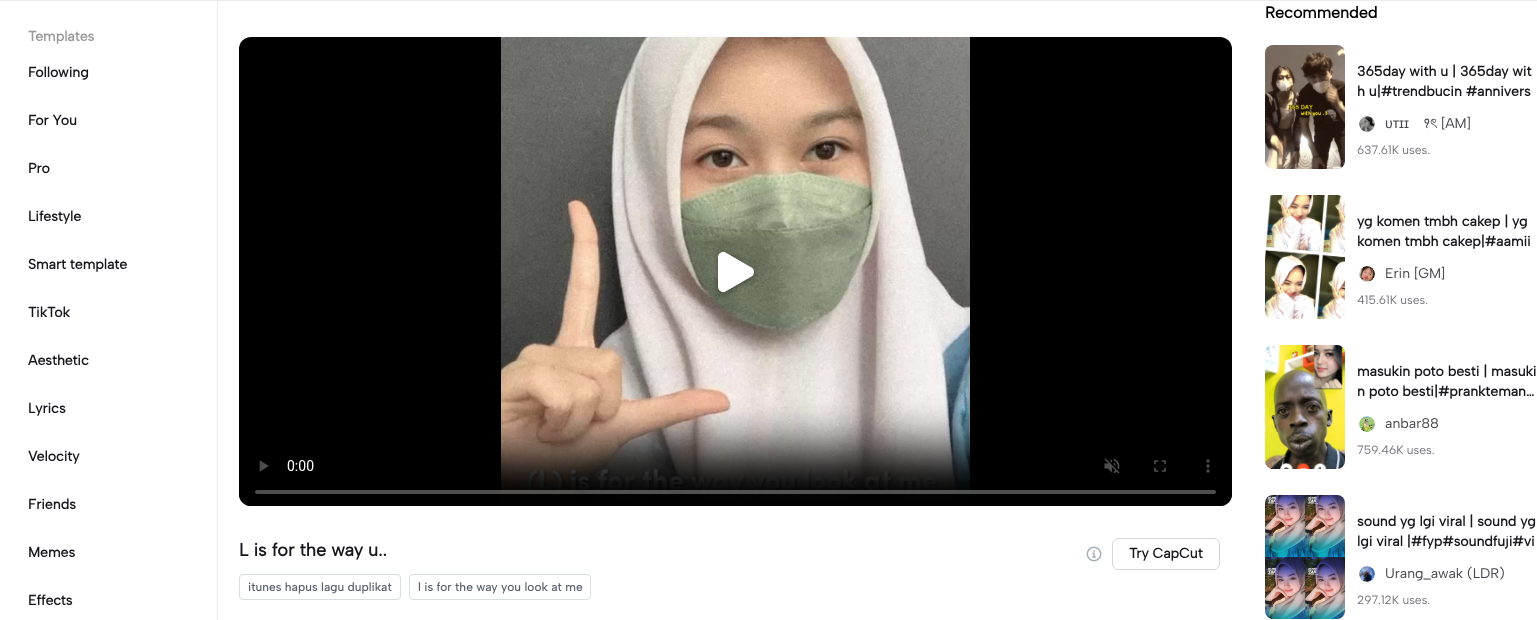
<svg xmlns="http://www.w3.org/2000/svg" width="1537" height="620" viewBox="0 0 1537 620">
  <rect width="100%" height="100%" fill="rgb(255,255,255)"/>
  <rect x="0" y="0" width="1537" height="1" fill="rgb(235,235,235)"/>
  <rect x="217" y="1" width="1" height="619" fill="rgb(235,235,235)"/>
  <text x="28" y="41" font-family="Albert Sans" font-size="14" font-weight="bold" fill="rgb(153,153,153)">Templates</text>
  <g font-family="Albert Sans" font-size="14" font-weight="bold" fill="rgb(22,22,29)">
    <text x="28" y="77">Following</text>
    <text x="28" y="125">For You</text>
    <text x="28" y="173">Pro</text>
    <text x="28" y="221">Lifestyle</text>
    <text x="28" y="269">Smart template</text>
    <text x="28" y="317">TikTok</text>
    <text x="28" y="365">Aesthetic</text>
    <text x="28" y="413">Lyrics</text>
    <text x="28" y="461">Velocity</text>
    <text x="28" y="509">Friends</text>
    <text x="28" y="557">Memes</text>
    <text x="28" y="605">Effects</text>
  </g>
  <rect x="239" y="37" width="993" height="469" rx="12" fill="rgb(0,0,0)"/>
  <image x="239" y="37" width="993" height="469" href="pic1.png"/>
  <image x="713" y="250" width="45" height="48" href="pic2.png"/>
  <text x="239" y="556" font-family="Albert Sans" font-size="18" font-weight="bold" fill="rgb(22,22,29)">L is for the way u..</text>
  <image x="1086" y="546" width="16" height="16" href="pic3.png"/>
  <rect x="1112.5" y="538.5" width="107" height="31" rx="5.5" fill="none" stroke="rgb(214,214,214)"/>
  <text x="1129" y="558" font-family="Albert Sans" font-size="14" font-weight="bold" fill="rgb(22,22,29)">Try CapCut</text>
  <rect x="239.5" y="574.5" width="161" height="25" rx="3.5" fill="none" stroke="rgb(215,222,226)"/>
  <text x="248" y="591" font-family="Albert Sans" font-size="12" font-weight="500" fill="rgb(88,95,107)">itunes hapus lagu duplikat</text>
  <rect x="409.5" y="574.5" width="181" height="25" rx="3.5" fill="none" stroke="rgb(215,222,226)"/>
  <text x="418" y="591" font-family="Albert Sans" font-size="12" font-weight="500" fill="rgb(88,95,107)">l is for the way you look at me</text>
  <text x="1265" y="18" font-family="Albert Sans" font-size="16" font-weight="bold" fill="rgb(0,0,0)">Recommended</text>
  <image x="1265" y="45" width="80" height="124" href="pic4.png"/>
  <g font-family="Albert Sans" font-size="14" font-weight="bold" fill="rgb(22,22,29)">
    <text>
      <tspan x="1357" y="76">365day with u | 365day wit</tspan>
      <tspan x="1357" y="96">h u|#trendbucin #annivers</tspan>
    </text>
  </g>
  <image x="1359" y="116" width="16" height="16" href="pic5.png"/>
  <text x="1385" y="128" font-family="Liberation Sans" font-size="14" fill="rgb(70,70,76)">ᴜᴛɪɪ</text>
  <text x="1424" y="128" font-family="Noto Sans Saurashtra" font-size="14" fill="rgb(70,70,76)">꣑</text>
  <text x="1430" y="128" font-family="Lohit Bengali" font-size="14" fill="rgb(70,70,76)">ৎ</text>
  <text x="1441" y="128" font-family="Albert Sans" font-size="14" fill="rgb(70,70,76)">[AM]</text>
  <text x="1357" y="154" font-family="Albert Sans" font-size="12" fill="rgb(117,117,128)">637.61K uses.</text>
  <image x="1265" y="195" width="80" height="124" href="pic6.png"/>
  <g font-family="Albert Sans" font-size="14" font-weight="bold" fill="rgb(22,22,29)">
    <text>
      <tspan x="1357" y="226">yg komen tmbh cakep | yg</tspan>
      <tspan x="1357" y="246">komen tmbh cakep|#aamii</tspan>
    </text>
  </g>
  <image x="1359" y="266" width="16" height="16" href="pic7.png"/>
  <text x="1385" y="278" font-family="Albert Sans" font-size="14" fill="rgb(70,70,76)">Erin [GM]</text>
  <text x="1357" y="304" font-family="Albert Sans" font-size="12" fill="rgb(117,117,128)">415.61K uses.</text>
  <image x="1265" y="345" width="80" height="124" href="pic8.png"/>
  <g font-family="Albert Sans" font-size="14" font-weight="bold" fill="rgb(22,22,29)">
    <text>
      <tspan x="1357" y="376">masukin poto besti | masuki</tspan>
      <tspan x="1357" y="396">n poto besti|#prankteman…</tspan>
    </text>
  </g>
  <image x="1359" y="416" width="16" height="16" href="pic9.png"/>
  <text x="1385" y="428" font-family="Albert Sans" font-size="14" fill="rgb(70,70,76)">anbar88</text>
  <text x="1357" y="454" font-family="Albert Sans" font-size="12" fill="rgb(117,117,128)">759.46K uses.</text>
  <image x="1265" y="495" width="80" height="124" href="pic10.png"/>
  <g font-family="Albert Sans" font-size="14" font-weight="bold" fill="rgb(22,22,29)">
    <text>
      <tspan x="1357" y="526">sound yg lgi viral | sound yg</tspan>
      <tspan x="1357" y="546">lgi viral |#fyp#soundfuji#vi</tspan>
    </text>
  </g>
  <image x="1359" y="566" width="16" height="16" href="pic11.png"/>
  <text x="1385" y="578" font-family="Albert Sans" font-size="14" fill="rgb(70,70,76)">Urang_awak (LDR)</text>
  <text x="1357" y="604" font-family="Albert Sans" font-size="12" fill="rgb(117,117,128)">297.12K uses.</text>
</svg>
